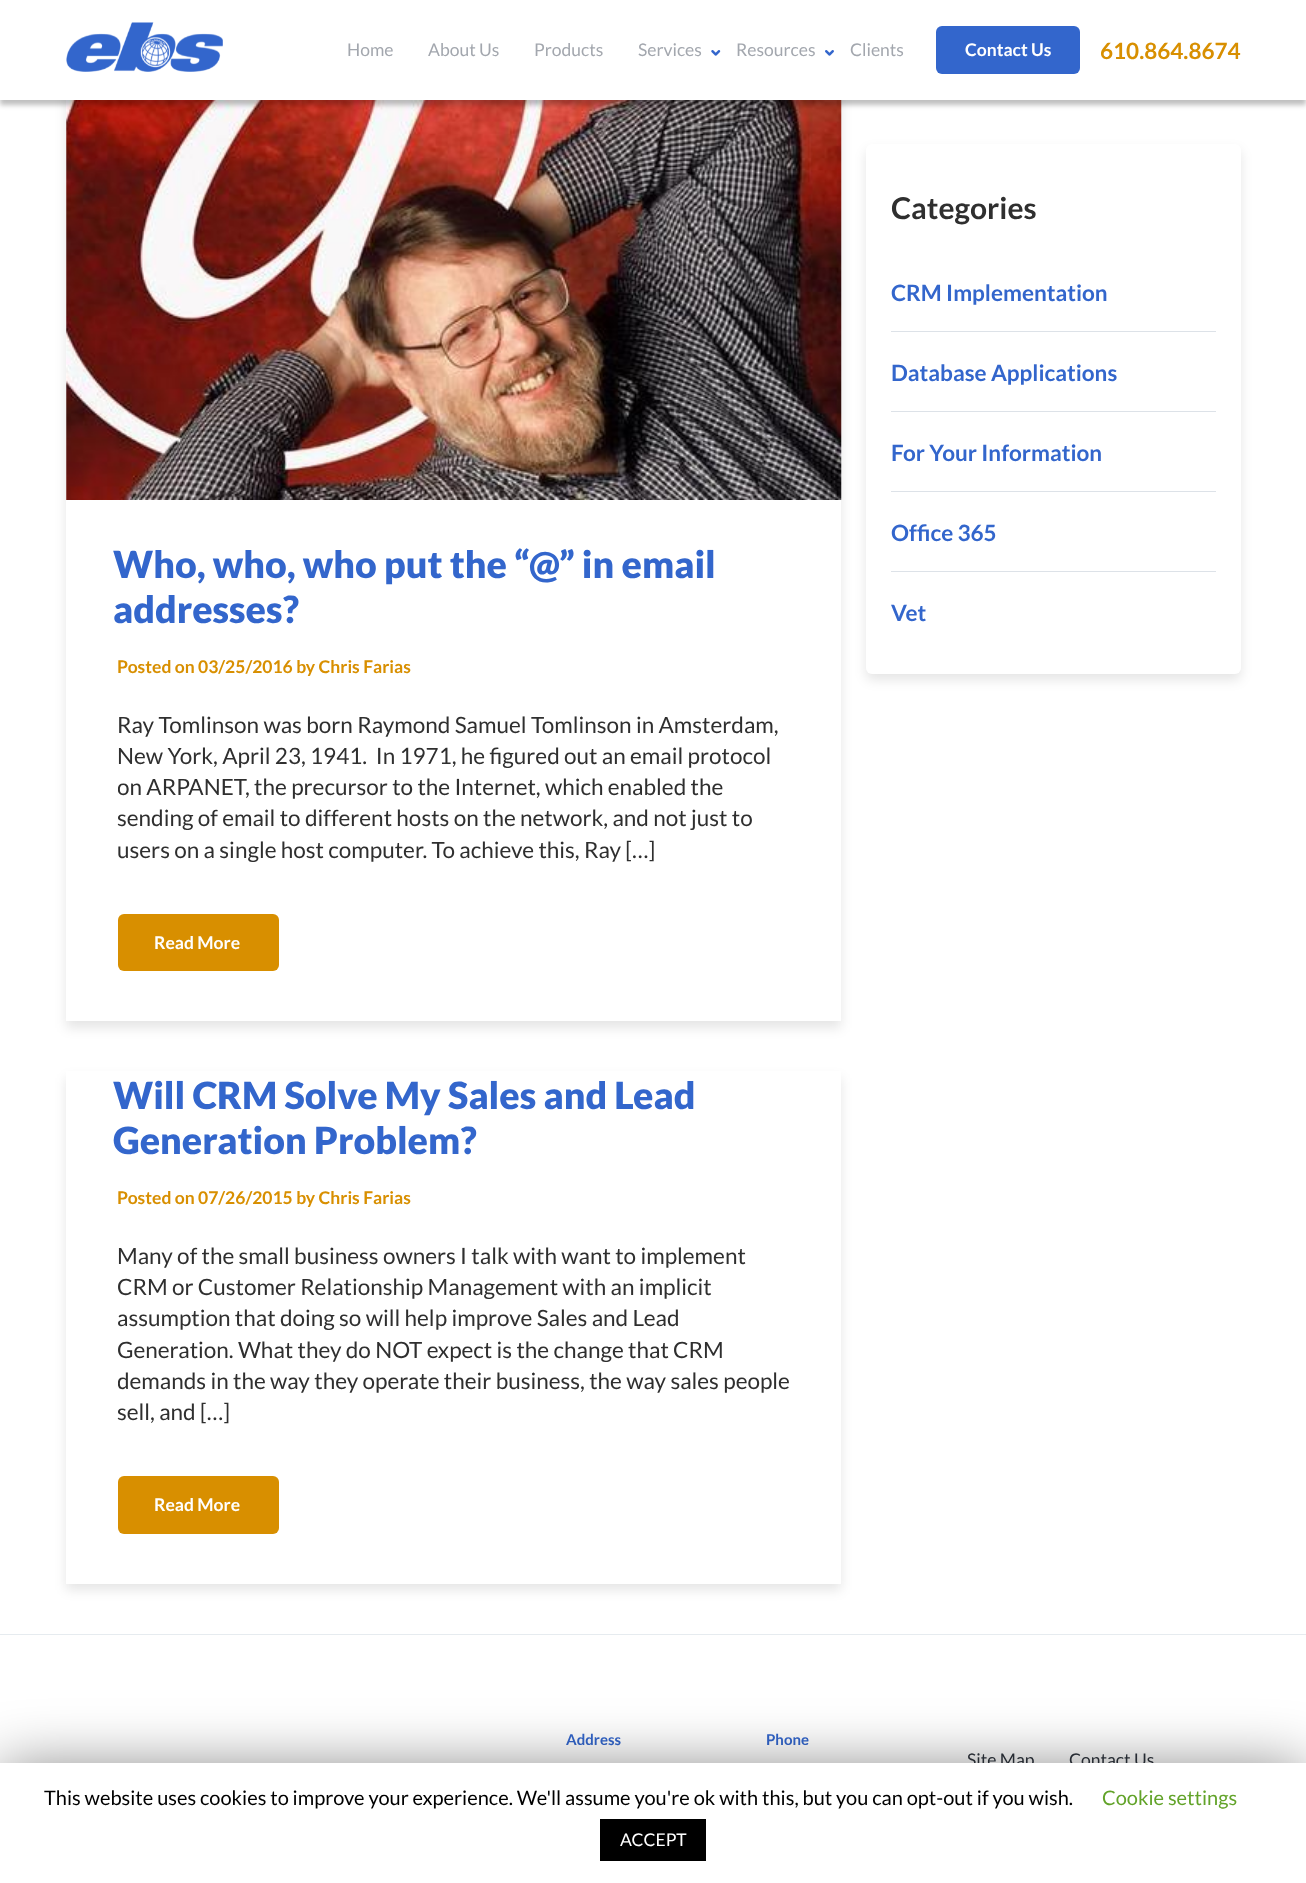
<svg xmlns="http://www.w3.org/2000/svg" width="1306" height="1883" viewBox="0 0 1306 1883">
  <defs>
    <clipPath id="clip1"><rect x="118" y="709" width="676" height="187"/></clipPath>
    <clipPath id="clip2"><rect x="118" y="1240" width="676" height="219"/></clipPath>
  </defs>
  <rect width="100%" height="100%" fill="rgb(255,255,255)"/>
  <rect x="66" y="6" width="775" height="1022" fill="rgba(0,0,0,0.1)" filter="blur(6px)"/>
  <rect x="66" y="100" width="775" height="921" fill="rgb(255,255,255)"/>
  <image x="66" y="100" width="776" height="400" href="pic4.png"/>
  <rect x="0" y="5" width="1306" height="100" fill="rgba(0,0,0,0.25)" filter="blur(2.5px)"/>
  <rect x="0" y="0" width="1306" height="100" fill="rgb(255,255,255)"/>
  <image x="66" y="22" width="157" height="50" href="pic1.png"/>
  <g font-family="Lato" font-size="17.5" fill="rgb(163,167,174)">
    <text x="347" y="56">Home</text>
    <text x="428" y="56">About Us</text>
    <text x="534" y="56">Products</text>
    <text x="638" y="56">Services</text>
  </g>
  <image x="711" y="50" width="10" height="6" href="pic2.png"/>
  <text x="736" y="56" font-family="Lato" font-size="17.5" fill="rgb(163,167,174)">Resources</text>
  <image x="825" y="50" width="9" height="6" href="pic3.png"/>
  <text x="850" y="56" font-family="Lato" font-size="17.5" fill="rgb(163,167,174)">Clients</text>
  <rect x="936" y="26" width="144" height="48" rx="6" fill="rgb(51,102,204)"/>
  <text x="965" y="56" font-family="Lato" font-size="17.5" font-weight="bold" fill="rgb(255,255,255)">Contact Us</text>
  <text x="1100" y="59" font-family="Lato" font-size="22.5" font-weight="bold" fill="rgb(216,143,0)">610.864.8674</text>
  <rect x="866" y="150" width="375" height="530" rx="6" fill="rgba(0,0,0,0.1)" filter="blur(6px)"/>
  <rect x="866" y="144" width="375" height="530" rx="6" fill="rgb(255,255,255)"/>
  <text x="891" y="219" font-family="Lato" font-size="30" font-weight="bold" fill="rgb(47,47,47)">Categories</text>
  <rect x="891" y="331" width="325" height="1" fill="rgb(221,226,232)"/>
  <text x="891" y="301" font-family="Lato" font-size="22.5" font-weight="bold" fill="rgb(51,102,204)">CRM Implementation</text>
  <rect x="891" y="411" width="325" height="1" fill="rgb(221,226,232)"/>
  <text x="891" y="381" font-family="Lato" font-size="22.5" font-weight="bold" fill="rgb(51,102,204)">Database Applications</text>
  <rect x="891" y="491" width="325" height="1" fill="rgb(221,226,232)"/>
  <text x="891" y="461" font-family="Lato" font-size="22.5" font-weight="bold" fill="rgb(51,102,204)">For Your Information</text>
  <rect x="891" y="571" width="325" height="1" fill="rgb(221,226,232)"/>
  <g font-family="Lato" font-size="22.5" font-weight="bold" fill="rgb(51,102,204)">
    <text x="891" y="541">Office 365</text>
    <text x="891" y="621">Vet</text>
  </g>
  <g font-family="Lato" font-size="37.5" font-weight="900" fill="rgb(51,102,204)">
    <text>
      <tspan x="113" y="578">Who, who, who put the “@” in email</tspan>
      <tspan x="113" y="623">addresses?</tspan>
    </text>
  </g>
  <text x="117" y="673" font-family="Lato" font-size="17.5" font-weight="bold" fill="rgb(216,143,0)">Posted on 03/25/2016 by Chris Farias</text>
  <g font-family="Lato" font-size="22.5" fill="rgb(47,47,47)">
    <text xml:space="preserve"><tspan x="117" y="733">Ray Tomlinson was born Raymond Samuel Tomlinson in Amsterdam,</tspan><tspan x="117" y="764">New York, April 23, 1941.  In 1971, he figured out an email protocol</tspan></text>
  </g>
  <g clip-path="url(#clip1)">
    <text x="117" y="795" font-family="Lato" font-size="22.5" fill="rgb(47,47,47)">on ARPANET, the precursor to the Internet, which enabled the</text>
  </g>
  <g font-family="Lato" font-size="22.5" fill="rgb(47,47,47)">
    <text>
      <tspan x="117" y="826">sending of email to different hosts on the network, and not just to</tspan>
      <tspan x="117" y="858">users on a single host computer. To achieve this, Ray […]</tspan>
    </text>
  </g>
  <rect x="118" y="914" width="161" height="57" rx="6" fill="rgb(216,143,0)"/>
  <text x="154" y="949" font-family="Lato" font-size="17.5" font-weight="bold" fill="rgb(255,255,255)">Read More</text>
  <rect x="66" y="1078" width="775" height="512" fill="rgba(0,0,0,0.1)" filter="blur(6px)"/>
  <rect x="66" y="1071" width="775" height="513" fill="rgb(255,255,255)"/>
  <g font-family="Lato" font-size="37.5" font-weight="900" fill="rgb(51,102,204)">
    <text>
      <tspan x="113" y="1109">Will CRM Solve My Sales and Lead</tspan>
      <tspan x="113" y="1154">Generation Problem?</tspan>
    </text>
  </g>
  <text x="117" y="1204" font-family="Lato" font-size="17.5" font-weight="bold" fill="rgb(216,143,0)">Posted on 07/26/2015 by Chris Farias</text>
  <g font-family="Lato" font-size="22.5" fill="rgb(47,47,47)">
    <text>
      <tspan x="117" y="1264">Many of the small business owners I talk with want to implement</tspan>
      <tspan x="117" y="1295">CRM or Customer Relationship Management with an implicit</tspan>
      <tspan x="117" y="1326">assumption that doing so will help improve Sales and Lead</tspan>
      <tspan x="117" y="1358">Generation. What they do NOT expect is the change that CRM</tspan>
    </text>
  </g>
  <g clip-path="url(#clip2)">
    <text x="117" y="1389" font-family="Lato" font-size="22.5" fill="rgb(47,47,47)">demands in the way they operate their business, the way sales people</text>
  </g>
  <text x="117" y="1420" font-family="Lato" font-size="22.5" fill="rgb(47,47,47)">sell, and […]</text>
  <rect x="118" y="1476" width="161" height="58" rx="6" fill="rgb(216,143,0)"/>
  <text x="154" y="1511" font-family="Lato" font-size="17.5" font-weight="bold" fill="rgb(255,255,255)">Read More</text>
  <rect x="0" y="1634" width="1306" height="1" fill="rgb(230,235,239)"/>
  <g font-family="Lato" font-size="15" font-weight="bold" fill="rgb(51,102,204)">
    <text x="566" y="1745">Address</text>
    <text x="766" y="1745">Phone</text>
  </g>
  <g font-family="Lato" font-size="17.5" fill="rgb(47,53,62)">
    <text x="967" y="1766">Site Map</text>
    <text x="1069" y="1766">Contact Us</text>
  </g>
  <rect x="0" y="1769" width="1306" height="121" fill="rgba(0,0,0,0.5)" filter="blur(31px)"/>
  <rect x="0" y="1763" width="1306" height="120" fill="rgb(255,255,255)"/>
  <text x="44" y="1805" font-family="Lato" font-size="20" fill="rgb(0,0,0)">This website uses cookies to improve your experience. We'll assume you're ok with this, but you can opt-out if you wish.</text>
  <text x="1102" y="1805" font-family="Lato" font-size="20" fill="rgb(98,163,41)">Cookie settings</text>
  <rect x="600" y="1819" width="106" height="42" fill="rgb(0,0,0)"/>
  <text x="620" y="1846" font-family="Lato" font-size="17.5" fill="rgb(255,255,255)">ACCEPT</text>
</svg>
